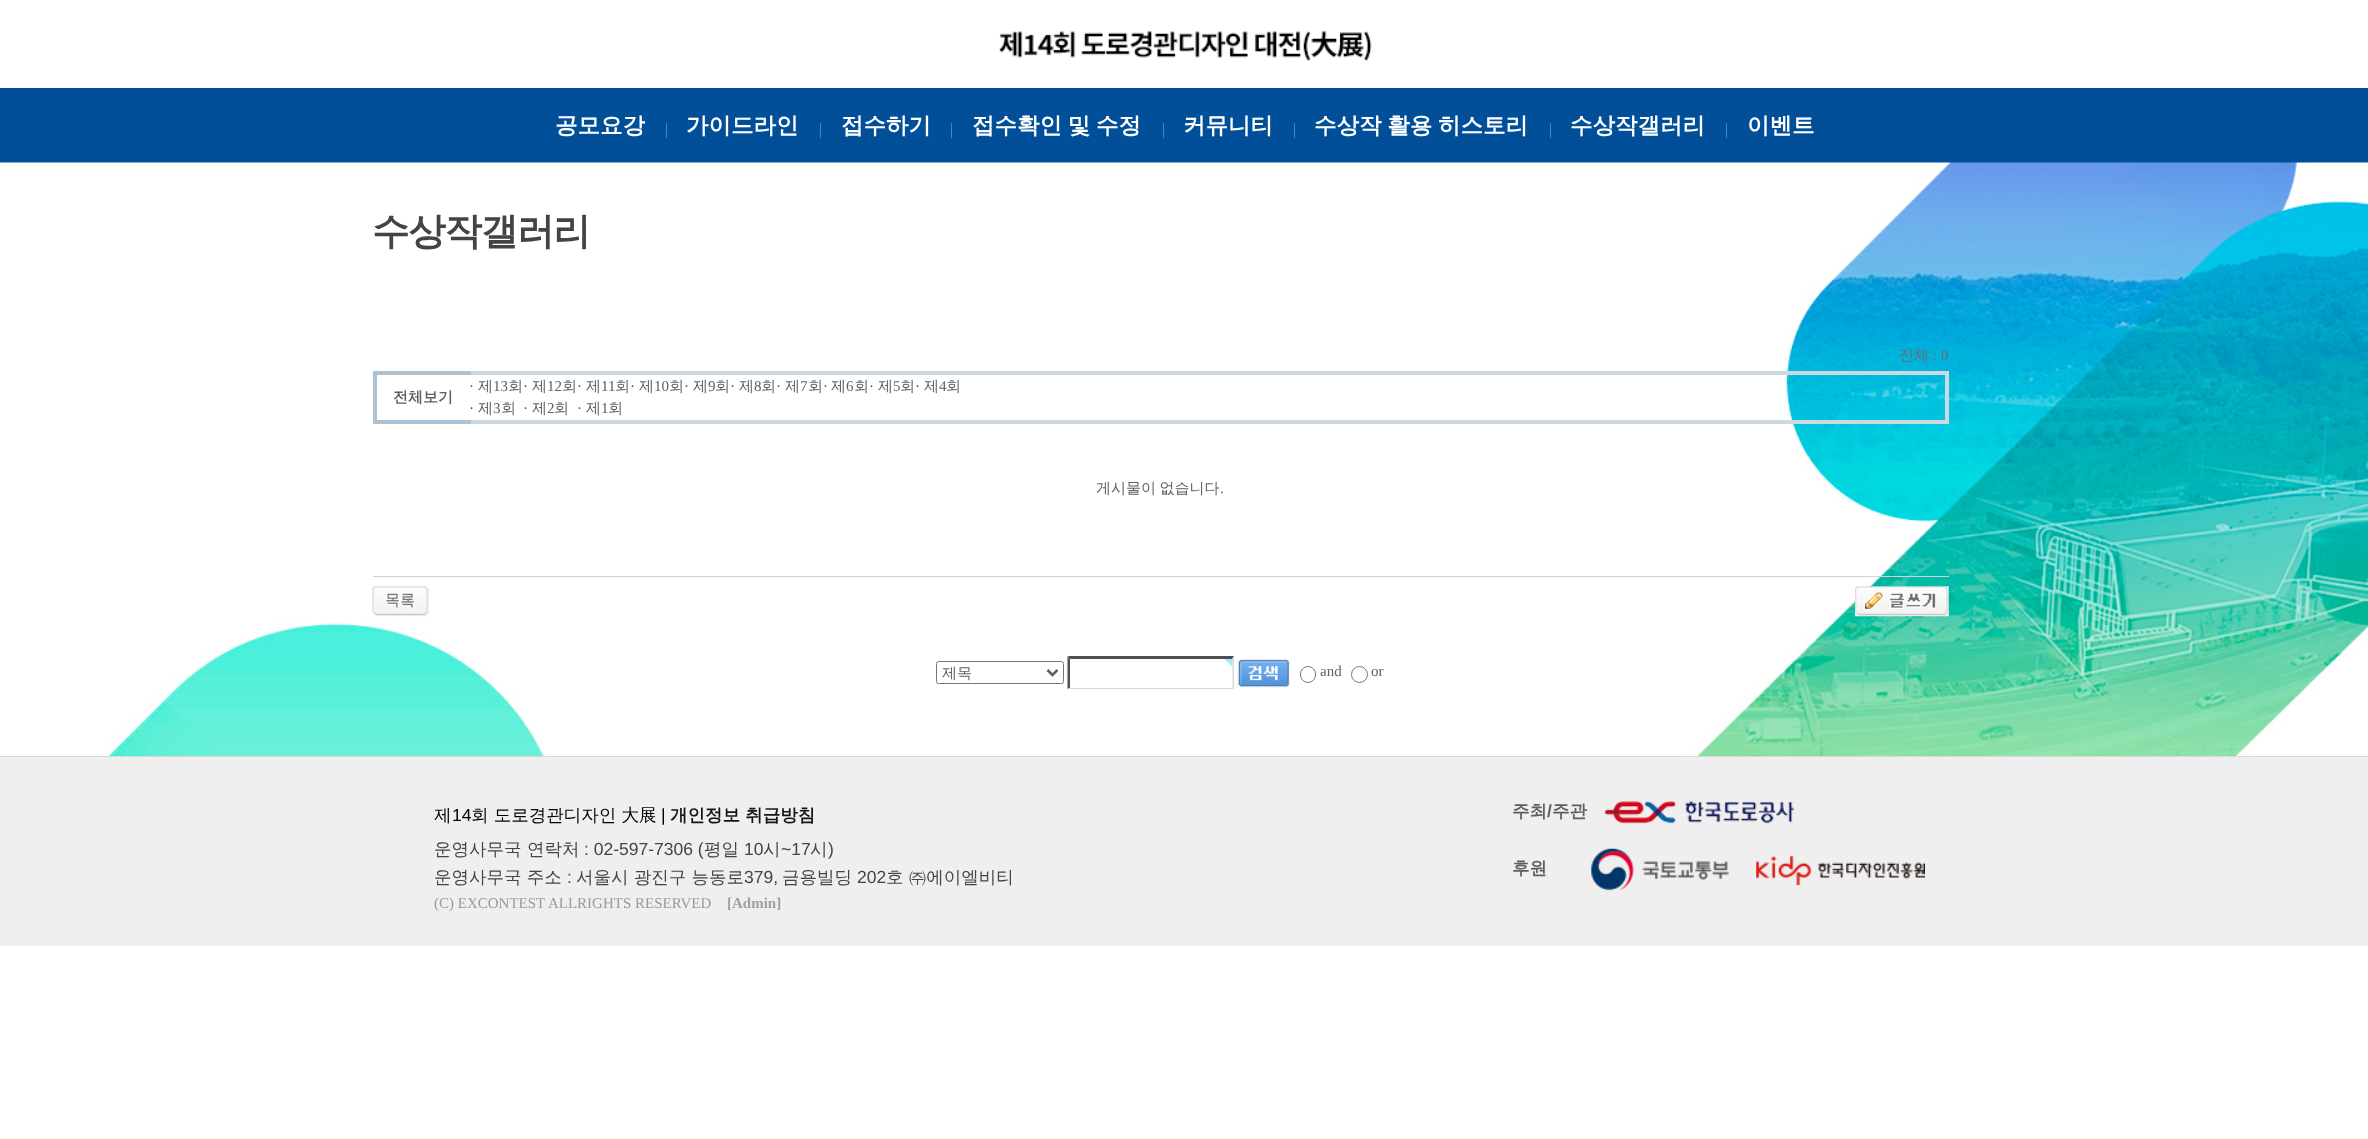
<svg xmlns="http://www.w3.org/2000/svg" width="2368" height="1139" viewBox="0 0 2368 1139">
  <rect width="100%" height="100%" fill="rgb(255,255,255)"/>
  <image x="998" y="31" width="374" height="31" href="pic1.png"/>
  <rect x="0" y="88" width="2368" height="75" fill="rgb(1,79,153)"/>
  <text x="555" y="133" font-family="WenQuanYi Zen Hei" font-size="22.5" font-weight="bold" fill="rgb(255,255,255)">공모요강</text>
  <rect x="666" y="123" width="1" height="15" fill="rgb(77,132,184)"/>
  <text x="686" y="133" font-family="WenQuanYi Zen Hei" font-size="22.5" font-weight="bold" fill="rgb(255,255,255)">가이드라인</text>
  <rect x="820" y="123" width="1" height="15" fill="rgb(77,132,184)"/>
  <text x="841" y="133" font-family="WenQuanYi Zen Hei" font-size="22.5" font-weight="bold" fill="rgb(255,255,255)">접수하기</text>
  <rect x="951" y="123" width="1" height="15" fill="rgb(77,132,184)"/>
  <text x="972" y="133" word-spacing="-1" font-family="WenQuanYi Zen Hei" font-size="22.5" font-weight="bold" fill="rgb(255,255,255)">접수확인 및 수정</text>
  <rect x="1163" y="123" width="1" height="15" fill="rgb(77,132,184)"/>
  <text x="1183" y="133" font-family="WenQuanYi Zen Hei" font-size="22.5" font-weight="bold" fill="rgb(255,255,255)">커뮤니티</text>
  <rect x="1294" y="123" width="1" height="15" fill="rgb(77,132,184)"/>
  <text x="1314" y="133" word-spacing="-1" font-family="WenQuanYi Zen Hei" font-size="22.5" font-weight="bold" fill="rgb(255,255,255)">수상작 활용 히스토리</text>
  <rect x="1550" y="123" width="1" height="15" fill="rgb(77,132,184)"/>
  <text x="1570" y="133" font-family="WenQuanYi Zen Hei" font-size="22.5" font-weight="bold" fill="rgb(255,255,255)">수상작갤러리</text>
  <rect x="1726" y="123" width="1" height="15" fill="rgb(77,132,184)"/>
  <text x="1747" y="133" font-family="WenQuanYi Zen Hei" font-size="22.5" font-weight="bold" fill="rgb(255,255,255)">이벤트</text>
  <image x="0" y="162" width="2368" height="594" href="pic2.png"/>
  <text x="372" y="244" font-family="WenQuanYi Zen Hei" font-size="37.5" font-weight="bold" letter-spacing="-1.25" fill="rgb(68,68,68)">수상작갤러리</text>
  <text x="1899" y="360" font-family="WenQuanYi Zen Hei" font-size="15" font-weight="500" fill="rgb(107,109,112)">전체</text>
  <text x="1933" y="360" font-family="Liberation Serif" font-size="15" fill="rgb(107,109,112)">: 0</text>
  <rect x="468" y="371" width="1481" height="4" fill="rgb(205,216,225)"/>
  <rect x="373" y="371" width="98" height="4" fill="rgb(171,194,213)"/>
  <rect x="1945" y="371" width="4" height="53" fill="rgb(205,216,225)"/>
  <rect x="468" y="420" width="1481" height="4" fill="rgb(205,216,225)"/>
  <rect x="373" y="420" width="98" height="4" fill="rgb(171,194,213)"/>
  <rect x="373" y="371" width="4" height="53" fill="rgb(171,194,213)"/>
  <text x="393" y="402" font-family="WenQuanYi Zen Hei" font-size="15" font-weight="bold" fill="rgb(95,95,95)">전체보기</text>
  <text x="469" y="391" font-family="Liberation Serif" font-size="15" fill="rgb(96,73,27)">·</text>
  <text x="478" y="391" font-family="WenQuanYi Zen Hei" font-size="15" font-weight="500" fill="rgb(95,95,95)">제</text>
  <text x="493" y="391" font-family="Liberation Serif" font-size="15" fill="rgb(95,95,95)">13</text>
  <text x="508" y="391" font-family="WenQuanYi Zen Hei" font-size="15" font-weight="500" fill="rgb(95,95,95)">회</text>
  <text x="523" y="391" font-family="Liberation Serif" font-size="15" fill="rgb(96,73,27)">·</text>
  <text x="532" y="391" font-family="WenQuanYi Zen Hei" font-size="15" font-weight="500" fill="rgb(95,95,95)">제</text>
  <text x="547" y="391" font-family="Liberation Serif" font-size="15" fill="rgb(95,95,95)">12</text>
  <text x="562" y="391" font-family="WenQuanYi Zen Hei" font-size="15" font-weight="500" fill="rgb(95,95,95)">회</text>
  <text x="577" y="391" font-family="Liberation Serif" font-size="15" fill="rgb(96,73,27)">·</text>
  <text x="586" y="391" font-family="WenQuanYi Zen Hei" font-size="15" font-weight="500" fill="rgb(95,95,95)">제</text>
  <text x="601" y="391" font-family="Liberation Serif" font-size="15" fill="rgb(95,95,95)">11</text>
  <text x="615" y="391" font-family="WenQuanYi Zen Hei" font-size="15" font-weight="500" fill="rgb(95,95,95)">회</text>
  <text x="630" y="391" font-family="Liberation Serif" font-size="15" fill="rgb(96,73,27)">·</text>
  <text x="639" y="391" font-family="WenQuanYi Zen Hei" font-size="15" font-weight="500" fill="rgb(95,95,95)">제</text>
  <text x="654" y="391" font-family="Liberation Serif" font-size="15" fill="rgb(95,95,95)">10</text>
  <text x="669" y="391" font-family="WenQuanYi Zen Hei" font-size="15" font-weight="500" fill="rgb(95,95,95)">회</text>
  <text x="684" y="391" font-family="Liberation Serif" font-size="15" fill="rgb(96,73,27)">·</text>
  <text x="693" y="391" font-family="WenQuanYi Zen Hei" font-size="15" font-weight="500" fill="rgb(95,95,95)">제</text>
  <text x="708" y="391" font-family="Liberation Serif" font-size="15" fill="rgb(95,95,95)">9</text>
  <text x="715" y="391" font-family="WenQuanYi Zen Hei" font-size="15" font-weight="500" fill="rgb(95,95,95)">회</text>
  <text x="730" y="391" font-family="Liberation Serif" font-size="15" fill="rgb(96,73,27)">·</text>
  <text x="739" y="391" font-family="WenQuanYi Zen Hei" font-size="15" font-weight="500" fill="rgb(95,95,95)">제</text>
  <text x="754" y="391" font-family="Liberation Serif" font-size="15" fill="rgb(95,95,95)">8</text>
  <text x="761" y="391" font-family="WenQuanYi Zen Hei" font-size="15" font-weight="500" fill="rgb(95,95,95)">회</text>
  <text x="776" y="391" font-family="Liberation Serif" font-size="15" fill="rgb(96,73,27)">·</text>
  <text x="785" y="391" font-family="WenQuanYi Zen Hei" font-size="15" font-weight="500" fill="rgb(95,95,95)">제</text>
  <text x="800" y="391" font-family="Liberation Serif" font-size="15" fill="rgb(95,95,95)">7</text>
  <text x="808" y="391" font-family="WenQuanYi Zen Hei" font-size="15" font-weight="500" fill="rgb(95,95,95)">회</text>
  <text x="823" y="391" font-family="Liberation Serif" font-size="15" fill="rgb(96,73,27)">·</text>
  <text x="831" y="391" font-family="WenQuanYi Zen Hei" font-size="15" font-weight="500" fill="rgb(95,95,95)">제</text>
  <text x="846" y="391" font-family="Liberation Serif" font-size="15" fill="rgb(95,95,95)">6</text>
  <text x="854" y="391" font-family="WenQuanYi Zen Hei" font-size="15" font-weight="500" fill="rgb(95,95,95)">회</text>
  <text x="869" y="391" font-family="Liberation Serif" font-size="15" fill="rgb(96,73,27)">·</text>
  <text x="878" y="391" font-family="WenQuanYi Zen Hei" font-size="15" font-weight="500" fill="rgb(95,95,95)">제</text>
  <text x="893" y="391" font-family="Liberation Serif" font-size="15" fill="rgb(95,95,95)">5</text>
  <text x="900" y="391" font-family="WenQuanYi Zen Hei" font-size="15" font-weight="500" fill="rgb(95,95,95)">회</text>
  <text x="915" y="391" font-family="Liberation Serif" font-size="15" fill="rgb(96,73,27)">·</text>
  <text x="924" y="391" font-family="WenQuanYi Zen Hei" font-size="15" font-weight="500" fill="rgb(95,95,95)">제</text>
  <text x="939" y="391" font-family="Liberation Serif" font-size="15" fill="rgb(95,95,95)">4</text>
  <text x="946" y="391" font-family="WenQuanYi Zen Hei" font-size="15" font-weight="500" fill="rgb(95,95,95)">회</text>
  <text x="469" y="413" font-family="Liberation Serif" font-size="15" fill="rgb(96,73,27)">·</text>
  <text x="478" y="413" font-family="WenQuanYi Zen Hei" font-size="15" font-weight="500" fill="rgb(95,95,95)">제</text>
  <text x="493" y="413" font-family="Liberation Serif" font-size="15" fill="rgb(95,95,95)">3</text>
  <text x="501" y="413" font-family="WenQuanYi Zen Hei" font-size="15" font-weight="500" fill="rgb(95,95,95)">회</text>
  <text x="523" y="413" font-family="Liberation Serif" font-size="15" fill="rgb(96,73,27)">·</text>
  <text x="532" y="413" font-family="WenQuanYi Zen Hei" font-size="15" font-weight="500" fill="rgb(95,95,95)">제</text>
  <text x="547" y="413" font-family="Liberation Serif" font-size="15" fill="rgb(95,95,95)">2</text>
  <text x="554" y="413" font-family="WenQuanYi Zen Hei" font-size="15" font-weight="500" fill="rgb(95,95,95)">회</text>
  <text x="577" y="413" font-family="Liberation Serif" font-size="15" fill="rgb(96,73,27)">·</text>
  <text x="586" y="413" font-family="WenQuanYi Zen Hei" font-size="15" font-weight="500" fill="rgb(95,95,95)">제</text>
  <text x="601" y="413" font-family="Liberation Serif" font-size="15" fill="rgb(95,95,95)">1</text>
  <g font-family="WenQuanYi Zen Hei" font-size="15" font-weight="500" fill="rgb(95,95,95)">
    <text x="608" y="413">회</text>
    <text x="1096" y="493" word-spacing="-1">게시물이 없습니다</text>
  </g>
  <text x="1220" y="493" font-family="Liberation Serif" font-size="15" fill="rgb(95,95,95)">.</text>
  <rect x="373" y="576" width="1576" height="1" fill="rgb(209,209,209)"/>
  <image x="372" y="586" width="57" height="31" href="pic3.png"/>
  <image x="1855" y="586" width="94" height="31" href="pic4.png"/>
  <rect x="936.5" y="661.5" width="127" height="22" rx="2" fill="none" stroke="rgb(118,118,118)"/>
  <path d="M1047.5 670L1052.5 675L1057.5 670" fill="none" stroke="rgb(95,95,95)" stroke-width="2.5"/>
  <text x="942" y="678" font-family="WenQuanYi Zen Hei" font-size="15" font-weight="500" fill="rgb(95,95,95)">제목</text>
  <image x="1225" y="658" width="8" height="9" href="pic5.png"/>
  <path d="M1068 656H1234L1232 659H1070Z" fill="rgb(79,79,79)"/>
  <path d="M1234 656V689L1232.5 687.5V659Z" fill="rgb(216,216,216)"/>
  <path d="M1234 689H1068L1070 688H1232Z" fill="rgb(216,216,216)"/>
  <path d="M1067.5 689V656L1070 659V687.5Z" fill="rgb(79,79,79)"/>
  <image x="1237" y="659" width="53" height="29" href="pic6.png"/>
  <rect x="1300.5" y="666.5" width="15" height="16" rx="7.5" fill="none" stroke="rgb(118,118,118)"/>
  <text x="1320" y="676" font-family="Liberation Serif" font-size="15" fill="rgb(95,95,95)">and</text>
  <circle cx="1359.5" cy="674.5" r="8" fill="none" stroke="rgb(118,118,118)"/>
  <text x="1371" y="676" font-family="Liberation Serif" font-size="15" fill="rgb(95,95,95)">or</text>
  <rect x="0" y="757" width="2368" height="189" fill="rgb(239,239,239)"/>
  <rect x="0" y="756" width="2368" height="1" fill="rgb(215,216,216)"/>
  <text x="434" y="821" font-family="WenQuanYi Zen Hei" font-size="17.5" font-weight="500" fill="rgb(0,0,0)">제</text>
  <text x="452" y="821" font-family="Liberation Sans" font-size="17.5" fill="rgb(0,0,0)">14</text>
  <text x="471" y="821" font-family="WenQuanYi Zen Hei" font-size="17.5" font-weight="500" fill="rgb(0,0,0)">회 도로경관디자인 大展</text>
  <text x="661" y="821" font-family="Liberation Sans" font-size="17.5" fill="rgb(0,0,0)">|</text>
  <text x="670" y="821" font-family="WenQuanYi Zen Hei" font-size="17.5" font-weight="bold" fill="rgb(20,20,20)">개인정보 취급방침</text>
  <g font-family="WenQuanYi Zen Hei" font-size="17.5" font-weight="500" fill="rgb(68,68,68)">
    <text x="434" y="855">운영사무국</text>
    <text x="527" y="855">연락처</text>
  </g>
  <text x="584" y="855" font-family="Liberation Sans" font-size="17.5" fill="rgb(68,68,68)">: 02-597-7306 (</text>
  <text x="704" y="855" font-family="WenQuanYi Zen Hei" font-size="17.5" font-weight="500" fill="rgb(68,68,68)">평일</text>
  <text x="744" y="855" font-family="Liberation Sans" font-size="17.5" fill="rgb(68,68,68)">10</text>
  <text x="763" y="855" font-family="WenQuanYi Zen Hei" font-size="17.5" font-weight="500" fill="rgb(68,68,68)">시</text>
  <text x="781" y="855" font-family="Liberation Sans" font-size="17.5" fill="rgb(68,68,68)">~17</text>
  <text x="810" y="855" font-family="WenQuanYi Zen Hei" font-size="17.5" font-weight="500" fill="rgb(68,68,68)">시</text>
  <text x="828" y="855" font-family="Liberation Sans" font-size="17.5" fill="rgb(68,68,68)">)</text>
  <text x="434" y="883" font-family="WenQuanYi Zen Hei" font-size="17.5" font-weight="500" fill="rgb(68,68,68)">운영사무국 주소</text>
  <text x="567" y="883" font-family="Liberation Sans" font-size="17.5" fill="rgb(68,68,68)">:</text>
  <text x="576" y="883" font-family="WenQuanYi Zen Hei" font-size="17.5" font-weight="500" fill="rgb(68,68,68)">서울시 광진구 능동로</text>
  <text x="744" y="883" font-family="Liberation Sans" font-size="17.5" fill="rgb(68,68,68)">379,</text>
  <text x="782" y="883" font-family="WenQuanYi Zen Hei" font-size="17.5" font-weight="500" fill="rgb(68,68,68)">금용빌딩</text>
  <text x="857" y="883" font-family="Liberation Sans" font-size="17.5" fill="rgb(68,68,68)">202</text>
  <text x="886" y="883" font-family="WenQuanYi Zen Hei" font-size="17.5" font-weight="500" fill="rgb(68,68,68)">호 ㈜에이엘비티</text>
  <text x="434" y="908" font-family="Liberation Serif" font-size="15" fill="rgb(153,153,153)">(C) EXCONTEST ALLRIGHTS RESERVED</text>
  <text x="727" y="908" font-family="Liberation Serif" font-size="15" font-weight="bold" fill="rgb(160,160,160)">[Admin]</text>
  <text x="1512" y="817" font-family="WenQuanYi Zen Hei" font-size="17.5" font-weight="bold" fill="rgb(95,95,95)">주최</text>
  <text x="1547" y="817" font-family="Liberation Sans" font-size="17.5" font-weight="bold" fill="rgb(95,95,95)">/</text>
  <text x="1552" y="817" font-family="WenQuanYi Zen Hei" font-size="17.5" font-weight="bold" fill="rgb(95,95,95)">주관</text>
  <image x="1604" y="801" width="190" height="23" href="pic7.png"/>
  <text x="1512" y="874" font-family="WenQuanYi Zen Hei" font-size="17.5" font-weight="bold" fill="rgb(95,95,95)">후원</text>
  <image x="1591" y="848" width="138" height="43" href="pic8.png"/>
  <image x="1756" y="856" width="169" height="30" href="pic9.png"/>
</svg>
